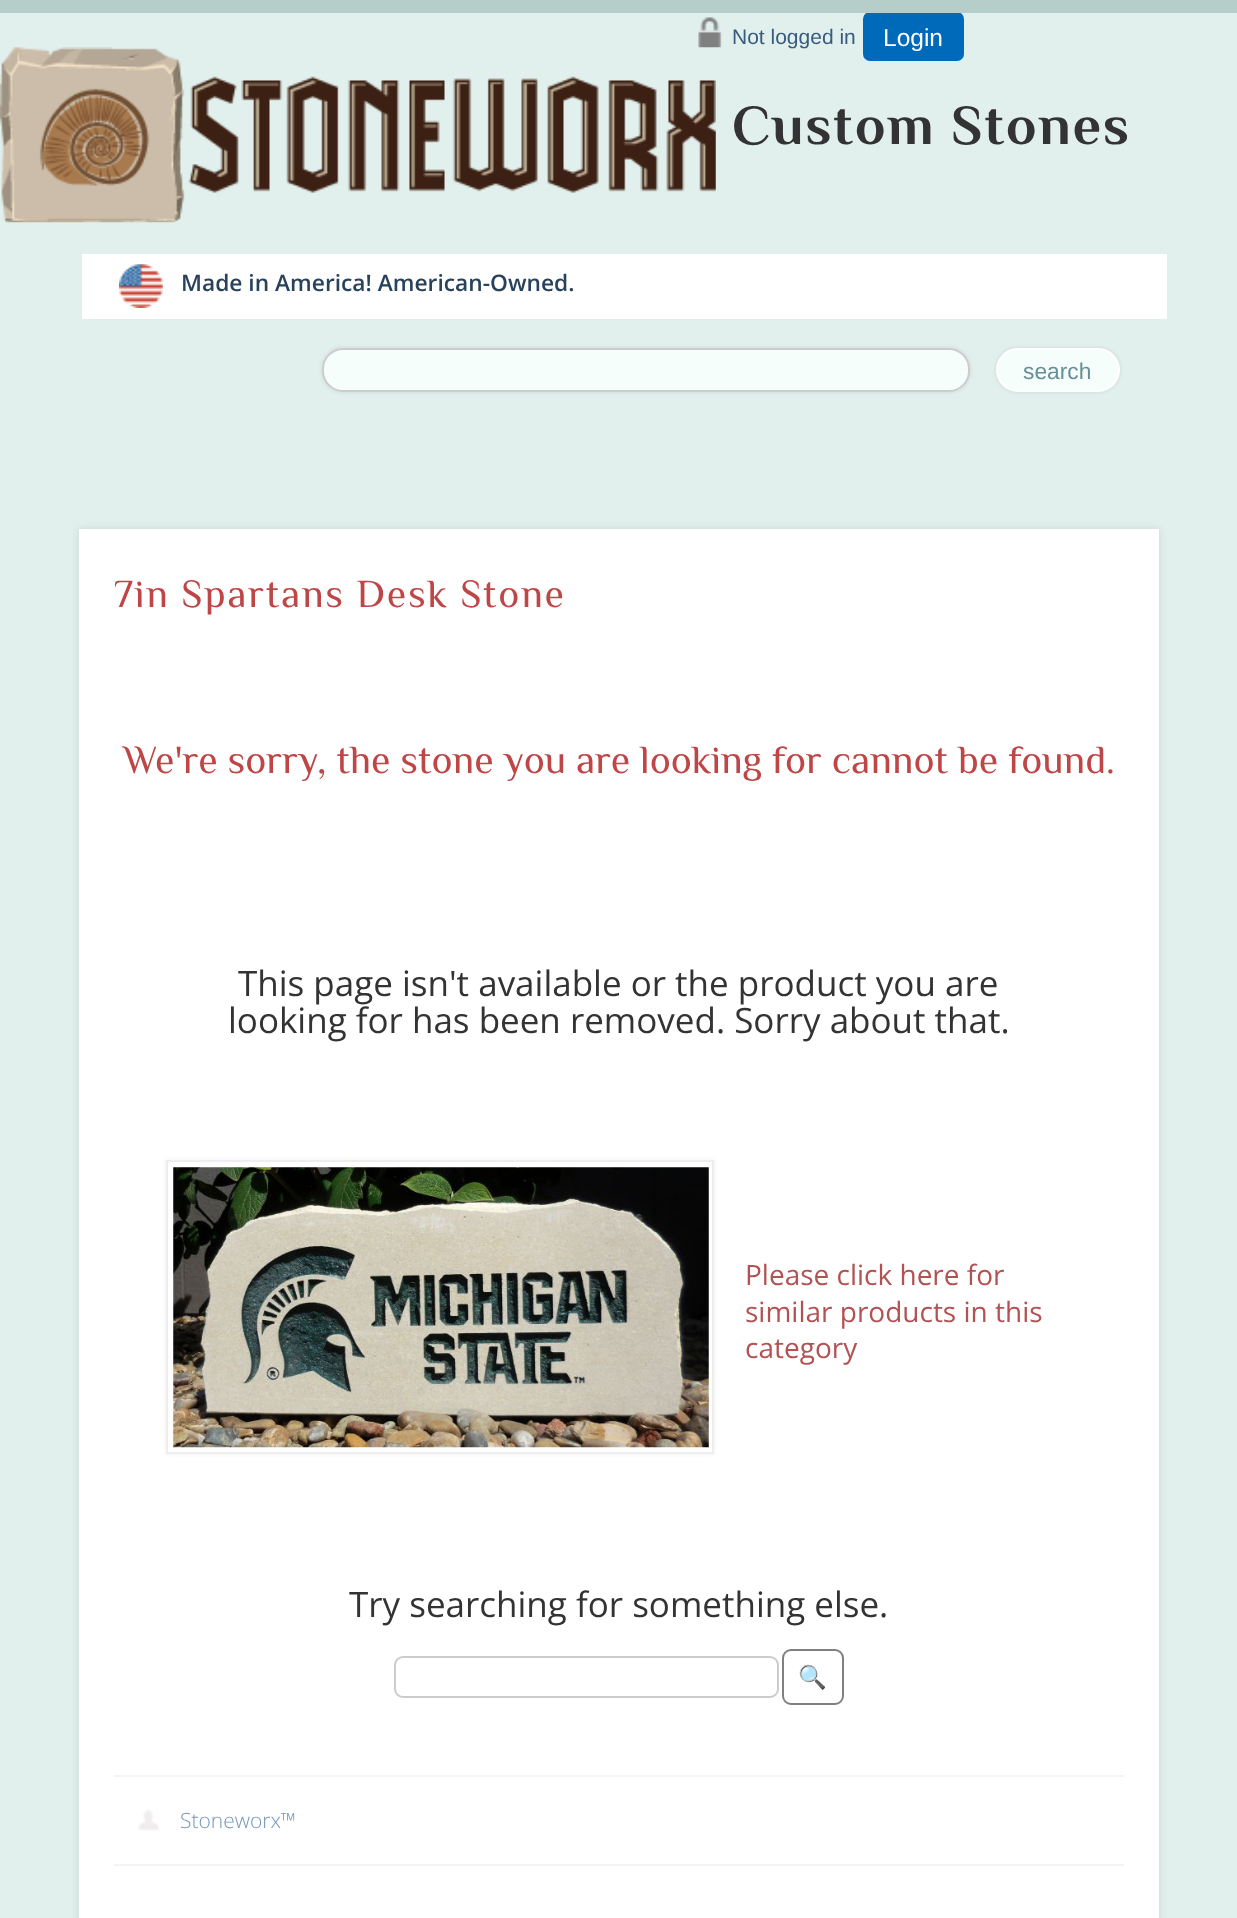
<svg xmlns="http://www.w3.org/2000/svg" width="1237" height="1918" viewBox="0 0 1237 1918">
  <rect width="100%" height="100%" fill="rgb(226,240,237)"/>
  <rect x="863" y="12" width="101" height="49" rx="7" fill="rgb(0,106,186)"/>
  <rect x="0" y="0" width="1237" height="13" fill="rgb(181,206,201)"/>
  <image x="0" y="47" width="716" height="176" href="pic2.png"/>
  <image x="698" y="17" width="24" height="31" href="pic1.png"/>
  <text x="732" y="44" font-family="Liberation Sans" font-size="21" fill="rgb(56,92,127)">Not logged in</text>
  <text x="883" y="46" font-family="Liberation Sans" font-size="24.5" fill="rgb(255,255,255)">Login</text>
  <text x="732" y="144" font-family="Philosopher" font-size="56" font-weight="bold" letter-spacing="1.75" fill="rgb(51,51,51)">Custom Stones</text>
  <rect x="82" y="254" width="1085" height="65" fill="rgb(255,255,255)"/>
  <image x="119" y="264" width="44" height="44" href="pic3.png"/>
  <text x="181" y="291" font-family="Open Sans" font-size="22.75" font-weight="600" fill="rgb(40,66,91)">Made in America! American-Owned.</text>
  <rect x="322" y="348" width="648" height="44" rx="21" fill="rgba(0,0,0,0.1)" filter="blur(2px)"/>
  <rect x="323" y="349" width="646" height="42" rx="20" fill="rgb(246,254,252)" stroke="rgb(204,204,204)" stroke-width="2"/>
  <rect x="996" y="348" width="124" height="44" rx="22" fill="rgba(0,0,0,0.1)" filter="blur(2px)"/>
  <rect x="997" y="349" width="122" height="42" rx="21" fill="rgb(246,254,252)" stroke="rgb(255,255,255)" stroke-width="2"/>
  <text x="1023" y="379" font-family="Liberation Sans" font-size="22.75" fill="rgb(103,143,151)">search</text>
  <rect x="79" y="529" width="1080" height="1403" fill="rgba(0,0,0,0.1)" filter="blur(4.5px)"/>
  <rect x="79" y="529" width="1080" height="1389" fill="rgb(255,255,255)"/>
  <text x="114" y="607" font-family="Philosopher" font-size="39.8" letter-spacing="1.75" fill="rgb(190,70,71)">7in Spartans Desk Stone</text>
  <text x="123" y="773" font-family="Philosopher" font-size="39.8" fill="rgb(190,70,71)">We're sorry, the stone you are looking for cannot be found.</text>
  <g font-family="Open Sans" font-size="35" fill="rgb(51,51,51)">
    <text x="238" y="996">This page isn't available or the product you are</text>
    <text x="228" y="1033">looking for has been removed. Sorry about that.</text>
  </g>
  <rect x="166" y="1160" width="548" height="294" fill="rgb(238,238,238)" filter="blur(2.5px)"/>
  <rect x="167" y="1161" width="546" height="292" fill="rgb(255,255,255)" stroke="rgb(238,238,238)" stroke-width="2"/>
  <image x="173" y="1167" width="536" height="281" href="pic4.png"/>
  <g font-family="Open Sans" font-size="28" fill="rgb(178,82,83)">
    <text>
      <tspan x="745" y="1285">Please click here for</tspan>
      <tspan x="745" y="1322">similar products in this</tspan>
      <tspan x="745" y="1358">category</tspan>
    </text>
  </g>
  <text x="349" y="1617" font-family="Open Sans" font-size="35" fill="rgb(51,51,51)">Try searching for something else.</text>
  <rect x="395" y="1657" width="383" height="40" rx="8" fill="none" stroke="rgb(204,204,204)" stroke-width="2"/>
  <rect x="783" y="1650" width="60" height="54" rx="8" fill="none" stroke="rgb(128,128,128)" stroke-width="2"/>
  <text x="798" y="1685" font-family="Noto Color Emoji" font-size="23" fill="rgb(0,0,0)">🔍</text>
  <rect x="114" y="1775" width="1010" height="2" fill="rgb(244,244,244)"/>
  <rect x="114" y="1864" width="1010" height="2" fill="rgb(244,244,244)"/>
  <image x="138" y="1809" width="21" height="22" href="pic5.png"/>
  <text x="180" y="1828" font-family="Open Sans" font-size="21" font-weight="300" fill="rgb(117,151,185)">Stoneworx™</text>
</svg>
